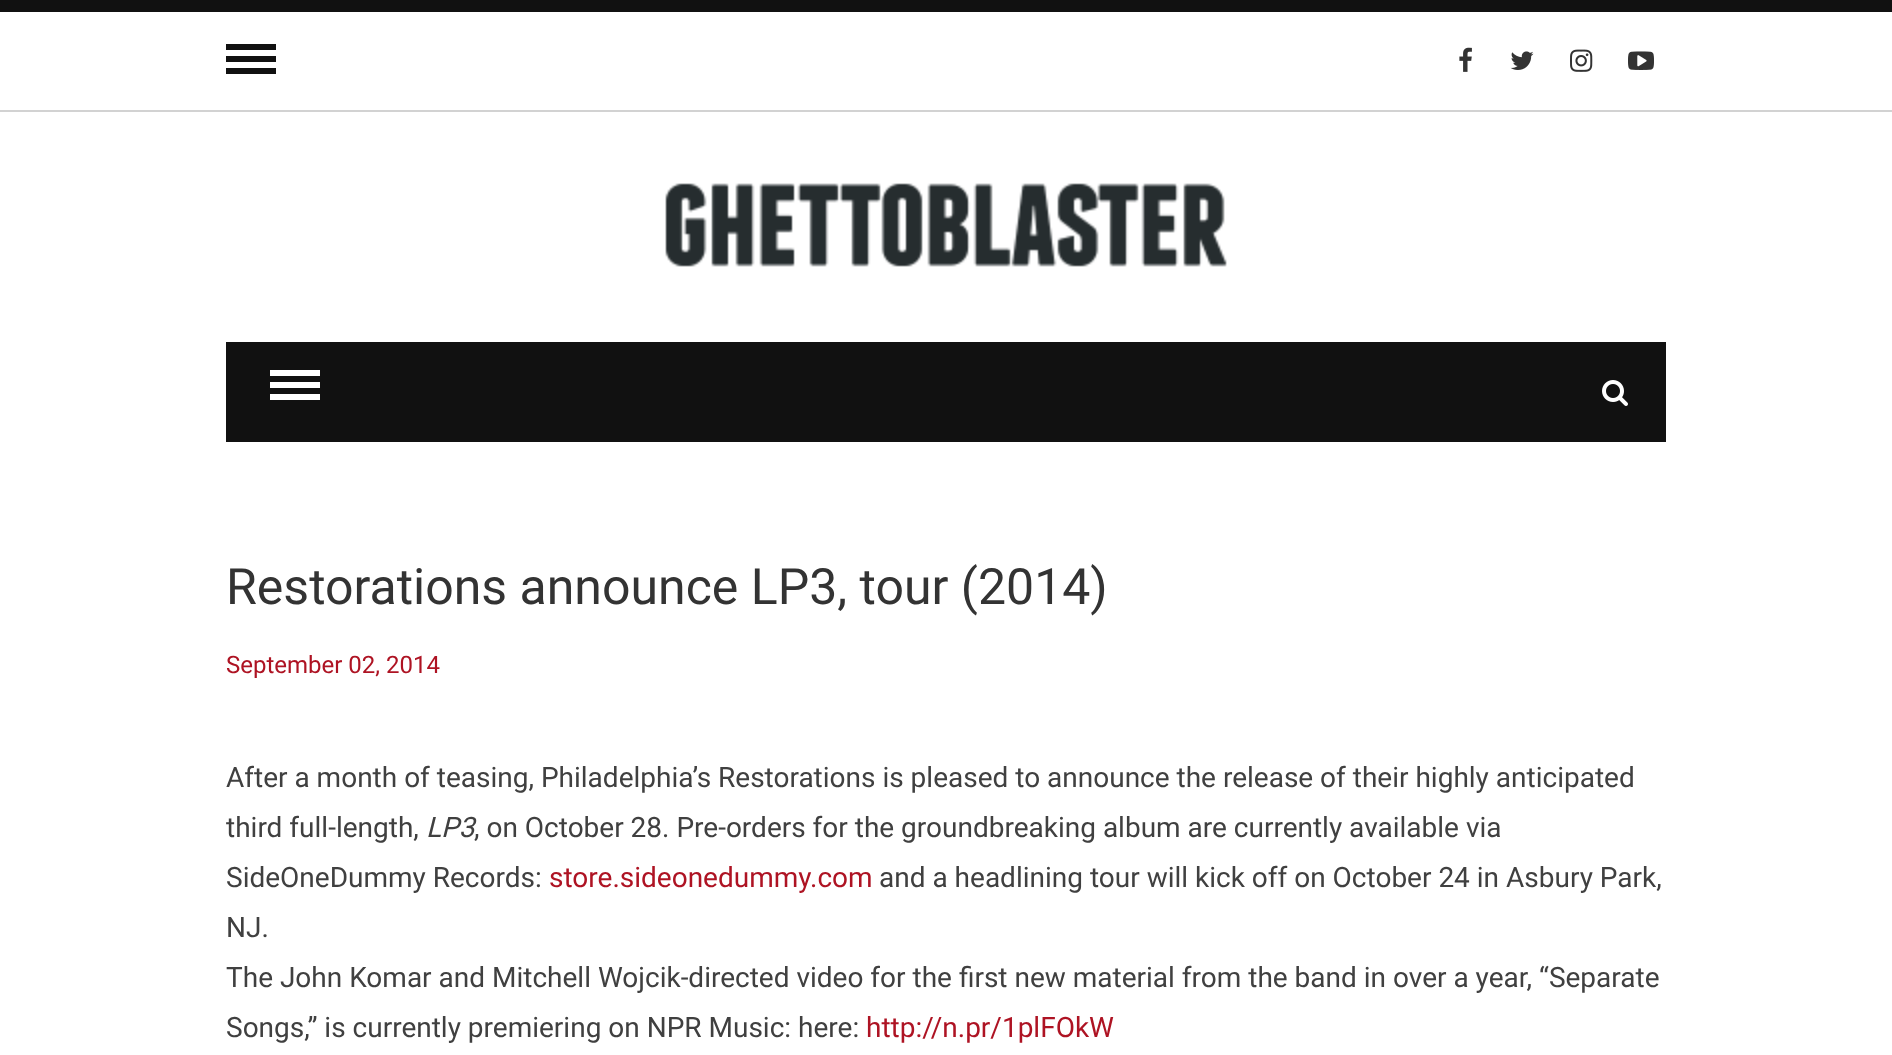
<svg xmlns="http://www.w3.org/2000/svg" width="1892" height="1055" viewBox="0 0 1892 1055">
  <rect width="100%" height="100%" fill="rgb(255,255,255)"/>
  <rect x="0" y="0" width="1892" height="12" fill="rgb(17,17,17)"/>
  <rect x="0" y="110" width="1892" height="2" fill="rgb(210,210,210)"/>
  <rect x="226" y="44" width="50" height="6" fill="rgb(17,17,17)"/>
  <rect x="226" y="56" width="50" height="6" fill="rgb(17,17,17)"/>
  <rect x="226" y="68" width="50" height="6" fill="rgb(17,17,17)"/>
  <image x="1459" y="47" width="13" height="25" href="pic1.png"/>
  <image x="1510" y="51" width="24" height="19" href="pic2.png"/>
  <image x="1570" y="49" width="23" height="23" href="pic3.png"/>
  <image x="1628" y="51" width="26" height="19" href="pic4.png"/>
  <image x="665" y="183" width="562" height="84" href="pic5.png"/>
  <rect x="226" y="342" width="1440" height="100" fill="rgb(17,17,17)"/>
  <rect x="270" y="370" width="50" height="6" fill="rgb(255,255,255)"/>
  <rect x="270" y="382" width="50" height="6" fill="rgb(255,255,255)"/>
  <rect x="270" y="394" width="50" height="6" fill="rgb(255,255,255)"/>
  <image x="1602" y="380" width="26" height="26" href="pic6.png"/>
  <text x="226" y="604" font-family="Roboto" font-size="50" fill="rgb(51,51,51)">Restorations announce LP3, tour (2014)</text>
  <text x="226" y="673" font-family="Roboto" font-size="24" fill="rgb(174,19,35)">September 02, 2014</text>
  <g font-family="Roboto" font-size="28" fill="rgb(64,64,64)">
    <text>
      <tspan x="226" y="787">After a month of teasing, Philadelphia’s Restorations is pleased to announce the release of their highly anticipated</tspan>
      <tspan x="226" y="837">third full-length,</tspan>
    </text>
  </g>
  <text x="426" y="837" font-family="Roboto" font-size="28" font-style="italic" fill="rgb(64,64,64)">LP3</text>
  <g font-family="Roboto" font-size="28" fill="rgb(64,64,64)">
    <text x="474" y="837">, on October 28. Pre-orders for the groundbreaking album are currently available via</text>
    <text x="226" y="887">SideOneDummy Records:</text>
  </g>
  <text x="549" y="887" font-family="Roboto" font-size="28" fill="rgb(174,19,35)">store.sideonedummy.com</text>
  <g font-family="Roboto" font-size="28" fill="rgb(64,64,64)">
    <text x="879" y="887">and a headlining tour will kick off on October 24 in Asbury Park,</text>
    <text>
      <tspan x="226" y="937">NJ.</tspan>
      <tspan x="226" y="987">The John Komar and Mitchell Wojcik-directed video for the first new material from the band in over a year, “Separate</tspan>
      <tspan x="226" y="1037">Songs,” is currently premiering on NPR Music: here:</tspan>
    </text>
  </g>
  <text x="866" y="1037" font-family="Roboto" font-size="28" fill="rgb(174,19,35)">http://n.pr/1plFOkW</text>
</svg>
